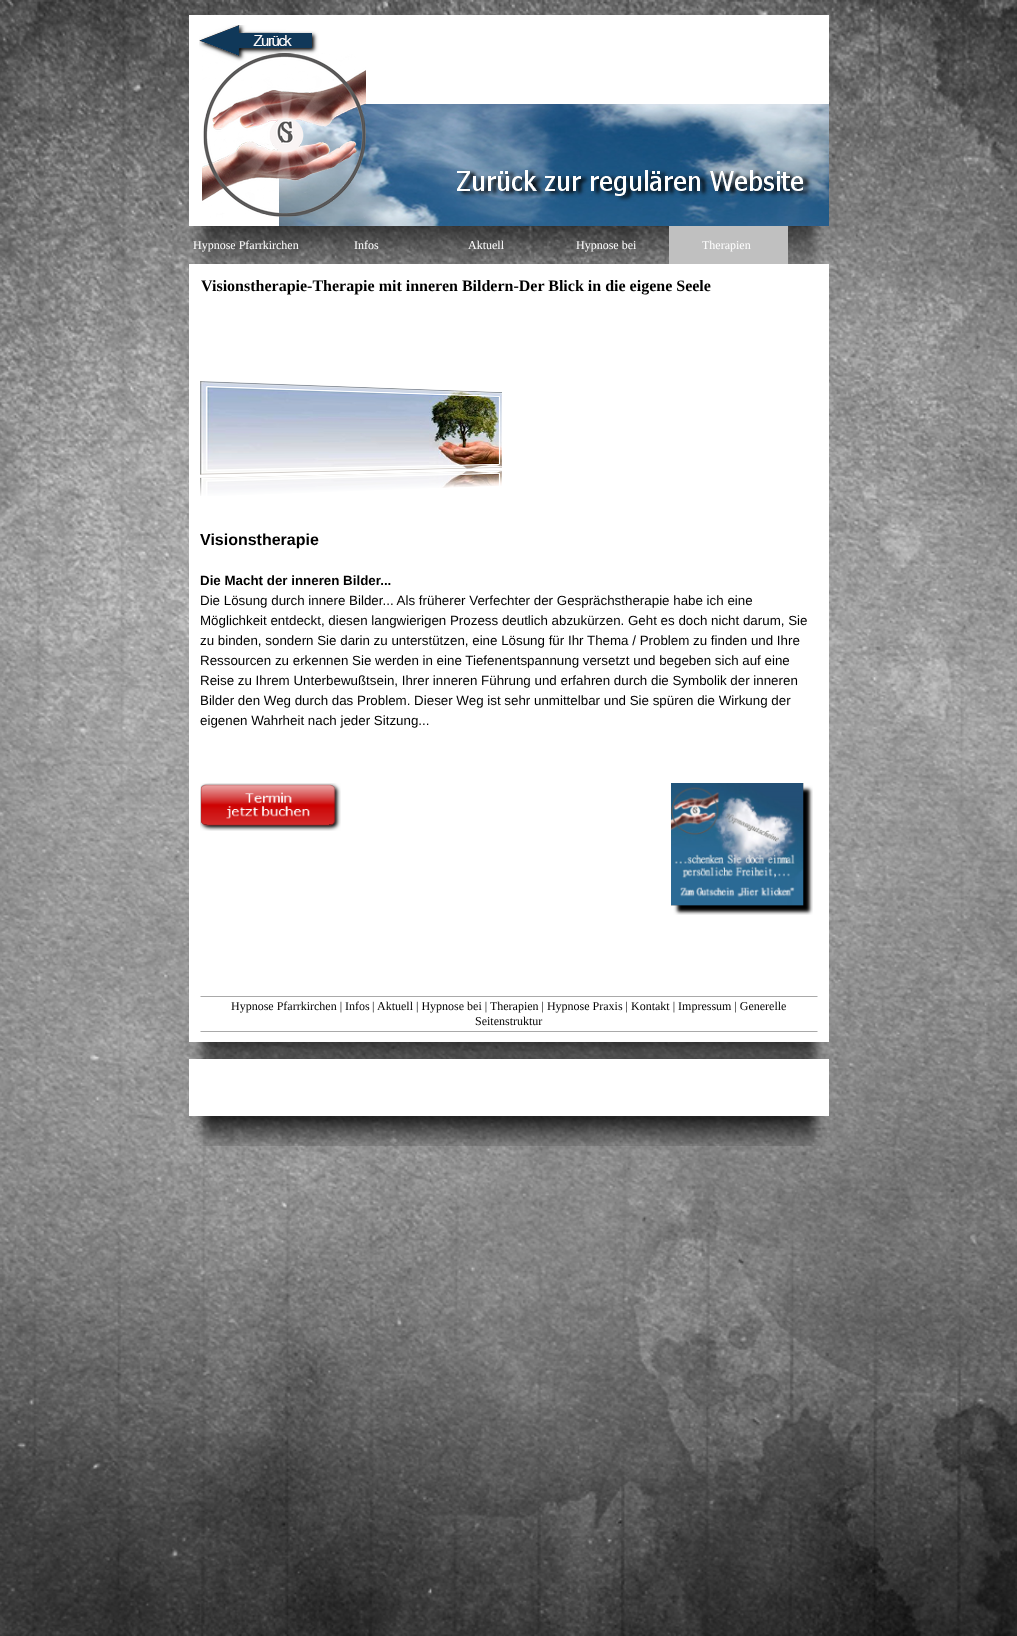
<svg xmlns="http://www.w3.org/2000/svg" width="1017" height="1636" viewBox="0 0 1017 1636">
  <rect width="100%" height="100%" fill="rgb(255,255,255)"/>
  <image x="0" y="0" width="1017" height="1636" href="pic1.png"/>
  <image x="189" y="15" width="640" height="211" href="pic2.png"/>
  <image x="457" y="168" width="355" height="34" href="pic3.png"/>
  <image x="194" y="226" width="630" height="38" href="pic4.png"/>
  <g font-family="Liberation Serif" font-size="12" fill="rgb(255,255,255)">
    <text x="193" y="249">Hypnose Pfarrkirchen</text>
    <text x="354" y="249">Infos</text>
    <text x="468" y="249">Aktuell</text>
    <text x="576" y="249">Hypnose bei</text>
  </g>
  <rect x="669" y="226" width="119" height="38" fill="rgb(192,192,192)"/>
  <text x="702" y="249" font-family="Liberation Serif" font-size="12" fill="rgb(255,255,255)">Therapien</text>
  <rect x="189" y="264" width="640" height="773" fill="rgb(255,255,255)"/>
  <text x="201" y="291" font-family="Liberation Serif" font-size="16" font-weight="bold" fill="rgb(0,0,0)">Visionstherapie-Therapie mit inneren Bildern-Der Blick in die eigene Seele</text>
  <image x="200" y="381" width="302" height="115" href="pic5.png"/>
  <text x="200" y="545" font-family="Liberation Sans" font-size="16" font-weight="bold" fill="rgb(0,0,0)">Visionstherapie</text>
  <text x="200" y="585" font-family="Liberation Sans" font-size="13.35" font-weight="bold" fill="rgb(0,0,0)">Die Macht der inneren Bilder...</text>
  <g font-family="Liberation Sans" font-size="13.35" fill="rgb(0,0,0)">
    <text>
      <tspan x="200" y="605">Die Lösung durch innere Bilder... Als früherer Verfechter der Gesprächstherapie habe ich eine</tspan>
      <tspan x="200" y="625">Möglichkeit entdeckt, diesen langwierigen Prozess deutlich abzukürzen. Geht es doch nicht darum, Sie</tspan>
      <tspan x="200" y="645">zu binden, sondern Sie darin zu unterstützen, eine Lösung für Ihr Thema / Problem zu finden und Ihre</tspan>
      <tspan x="200" y="665">Ressourcen zu erkennen Sie werden in eine Tiefenentspannung versetzt und begeben sich auf eine</tspan>
      <tspan x="200" y="685">Reise zu Ihrem Unterbewußtsein, Ihrer inneren Führung und erfahren durch die Symbolik der inneren</tspan>
      <tspan x="200" y="705">Bilder den Weg durch das Problem. Dieser Weg ist sehr unmittelbar und Sie spüren die Wirkung der</tspan>
      <tspan x="200" y="725">eigenen Wahrheit nach jeder Sitzung...</tspan>
    </text>
  </g>
  <image x="200" y="783" width="141" height="48" href="pic6.png"/>
  <image x="671" y="783" width="142" height="132" href="pic7.png"/>
  <path d="M200 996H818L817 997H201Z" fill="rgb(169,169,169)"/>
  <path d="M818 1032H200L201 1031H817Z" fill="rgb(169,169,169)"/>
  <g font-family="Liberation Serif" font-size="12" fill="rgb(0,0,0)">
    <text x="231" y="1010">Hypnose Pfarrkirchen | Infos</text>
    <text x="372" y="1010">|</text>
    <text x="377" y="1010">Aktuell | Hypnose bei | Therapien | Hypnose Praxis | Kontakt | Impressum | Generelle</text>
    <text x="475" y="1025">Seitenstruktur</text>
  </g>
  <image x="189" y="1037" width="640" height="109" href="pic8.png"/>
</svg>
